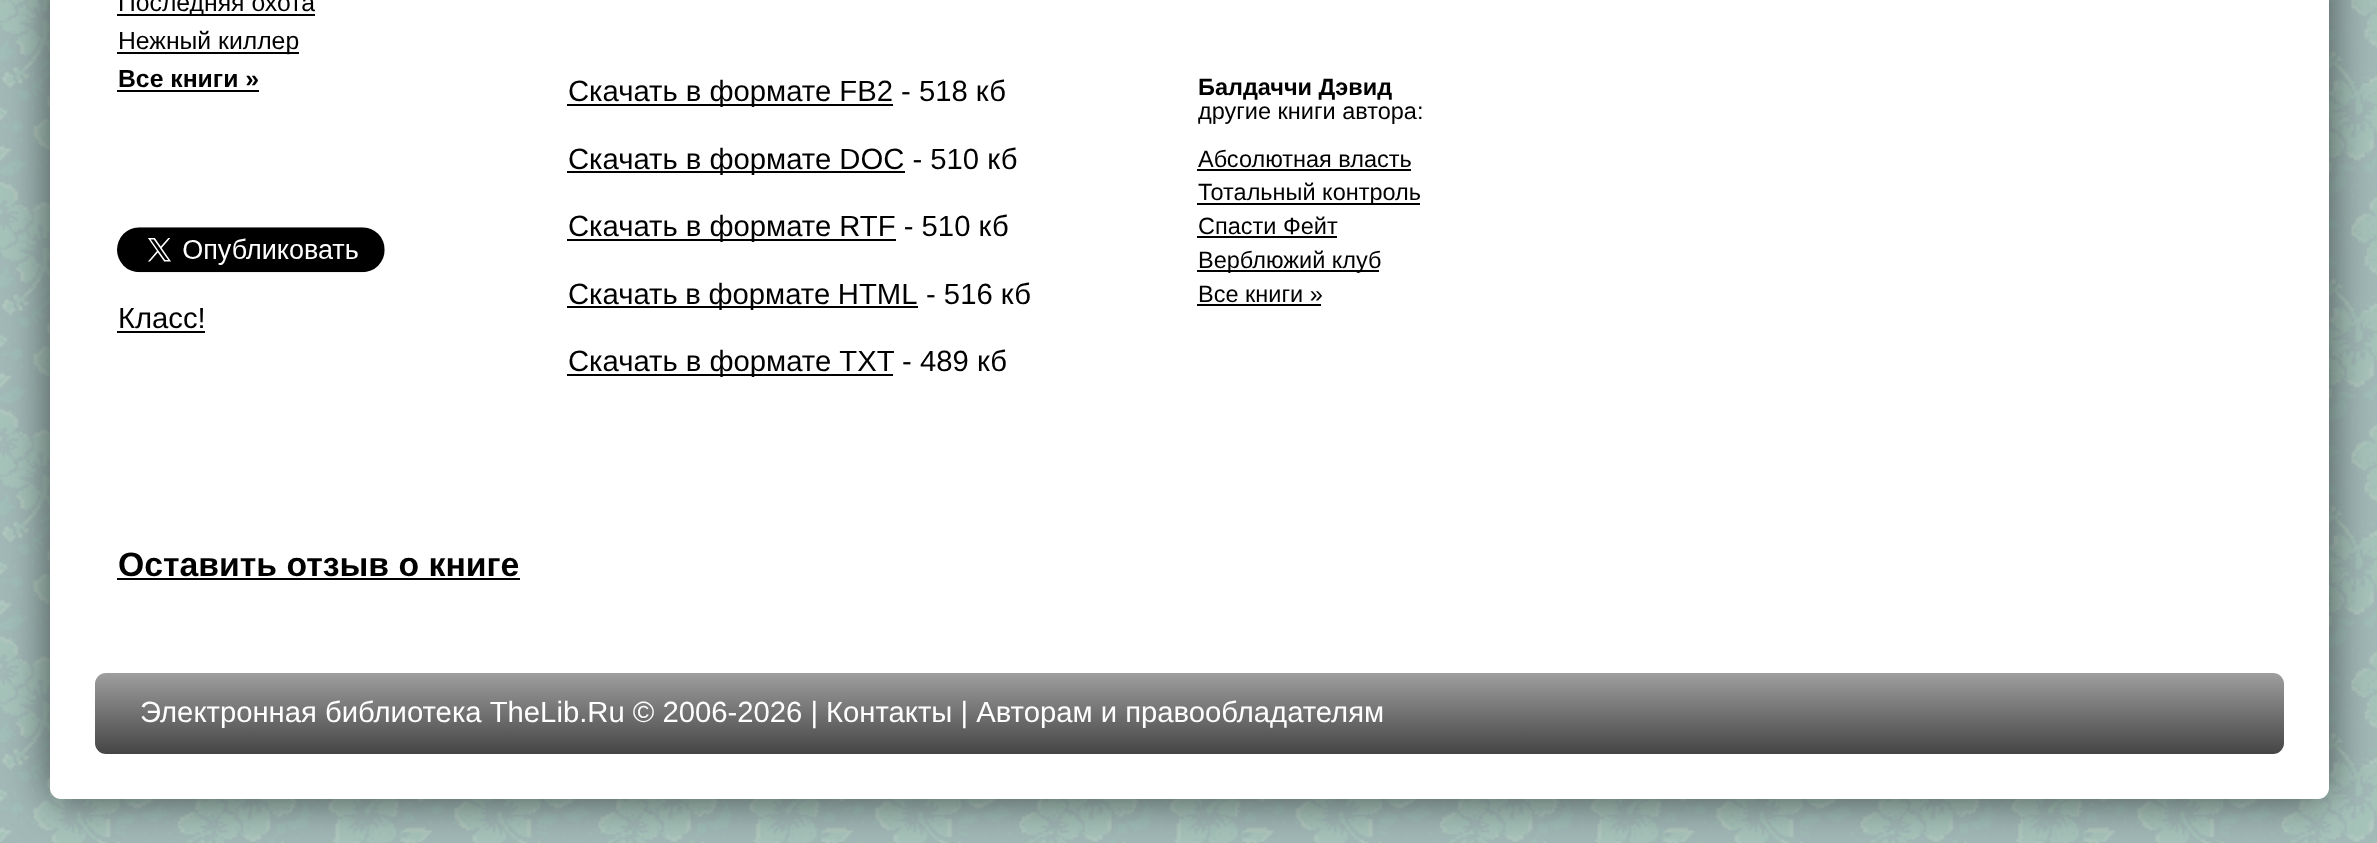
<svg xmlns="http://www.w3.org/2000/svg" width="2377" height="843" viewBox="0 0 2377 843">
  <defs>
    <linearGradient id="g1" gradientUnits="userSpaceOnUse" x1="1189" y1="673" x2="1189" y2="754"><stop offset="0" stop-color="rgb(158,158,158)"/><stop offset="1" stop-color="rgb(69,69,69)"/></linearGradient>
  </defs>
  <rect width="100%" height="100%" fill="rgb(255,255,255)"/>
  <image x="0" y="0" width="2377" height="843" href="pic1.png"/>
  <rect x="50" y="-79" width="2279" height="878" rx="11" fill="rgba(0,0,0,0.6)" filter="blur(22.5px)"/>
  <rect x="50" y="-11" width="2279" height="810" rx="11" fill="rgb(255,255,255)"/>
  <rect x="117" y="14" width="198" height="2" fill="rgb(0,0,0)"/>
  <text x="118" y="11" font-family="Liberation Sans" font-size="24.75" fill="rgb(0,0,0)">Последняя охота</text>
  <rect x="117" y="52" width="182" height="2" fill="rgb(0,0,0)"/>
  <text x="118" y="49" font-family="Liberation Sans" font-size="24.75" fill="rgb(0,0,0)">Нежный киллер</text>
  <text x="118" y="87" font-family="Liberation Sans" font-size="24.75" font-weight="bold" fill="rgb(0,0,0)">Все книги »</text>
  <rect x="117" y="90" width="142" height="2" fill="rgb(0,0,0)"/>
  <image x="117" y="227" width="268" height="46" href="pic2.png"/>
  <text x="118" y="328" font-family="Liberation Sans" font-size="29.25" fill="rgb(0,0,0)">Класс!</text>
  <rect x="117" y="331" width="88" height="2" fill="rgb(0,0,0)"/>
  <rect x="567" y="104" width="326" height="2" fill="rgb(0,0,0)"/>
  <text x="568" y="101" font-family="Liberation Sans" font-size="29.25" fill="rgb(0,0,0)">Скачать в формате FB2 - 518 кб</text>
  <rect x="567" y="171" width="338" height="2" fill="rgb(0,0,0)"/>
  <text x="568" y="169" font-family="Liberation Sans" font-size="29.25" fill="rgb(0,0,0)">Скачать в формате DOC - 510 кб</text>
  <rect x="567" y="239" width="329" height="2" fill="rgb(0,0,0)"/>
  <text x="568" y="236" font-family="Liberation Sans" font-size="29.25" fill="rgb(0,0,0)">Скачать в формате RTF - 510 кб</text>
  <rect x="567" y="306" width="351" height="2" fill="rgb(0,0,0)"/>
  <g font-family="Liberation Sans" font-size="29.25" fill="rgb(0,0,0)">
    <text x="568" y="304" word-spacing="-0.5">Скачать в формате HTML</text>
    <text x="926" y="304">- 516 кб</text>
  </g>
  <rect x="567" y="374" width="326" height="2" fill="rgb(0,0,0)"/>
  <text x="568" y="371" font-family="Liberation Sans" font-size="29.25" fill="rgb(0,0,0)">Скачать в формате TXT - 489 кб</text>
  <text x="1198" y="95" font-family="Liberation Sans" font-size="23.5" font-weight="bold" fill="rgb(0,0,0)">Балдаччи Дэвид</text>
  <g font-family="Liberation Sans" font-size="23.5" fill="rgb(0,0,0)">
    <text x="1198" y="119">другие книги автора:</text>
    <text x="1198" y="167">Абсолютная власть</text>
  </g>
  <rect x="1197" y="169" width="214" height="2" fill="rgb(0,0,0)"/>
  <rect x="1197" y="203" width="223" height="2" fill="rgb(0,0,0)"/>
  <g font-family="Liberation Sans" font-size="23.5" fill="rgb(0,0,0)">
    <text>
      <tspan x="1198" y="200">Тотальный контроль</tspan>
      <tspan x="1198" y="234">Спасти Фейт</tspan>
    </text>
  </g>
  <rect x="1197" y="236" width="140" height="2" fill="rgb(0,0,0)"/>
  <rect x="1197" y="270" width="182" height="2" fill="rgb(0,0,0)"/>
  <g font-family="Liberation Sans" font-size="23.5" fill="rgb(0,0,0)">
    <text>
      <tspan x="1198" y="268">Верблюжий клуб</tspan>
      <tspan x="1198" y="302">Все книги »</tspan>
    </text>
  </g>
  <rect x="1197" y="304" width="124" height="2" fill="rgb(0,0,0)"/>
  <text x="118" y="576" font-family="Liberation Sans" font-size="33.75" font-weight="bold" fill="rgb(0,0,0)">Оставить отзыв о книге</text>
  <rect x="117" y="578" width="403" height="2" fill="rgb(0,0,0)"/>
  <rect x="95" y="673" width="2189" height="81" rx="11" fill="url(#g1)"/>
  <g font-family="Liberation Sans" font-size="29.25" fill="rgb(255,255,255)">
    <text x="140" y="722">Электронная библиотека TheLib.Ru © 2006-2026 |</text>
    <text x="826" y="722">Контакты | Авторам и правообладателям</text>
  </g>
</svg>
